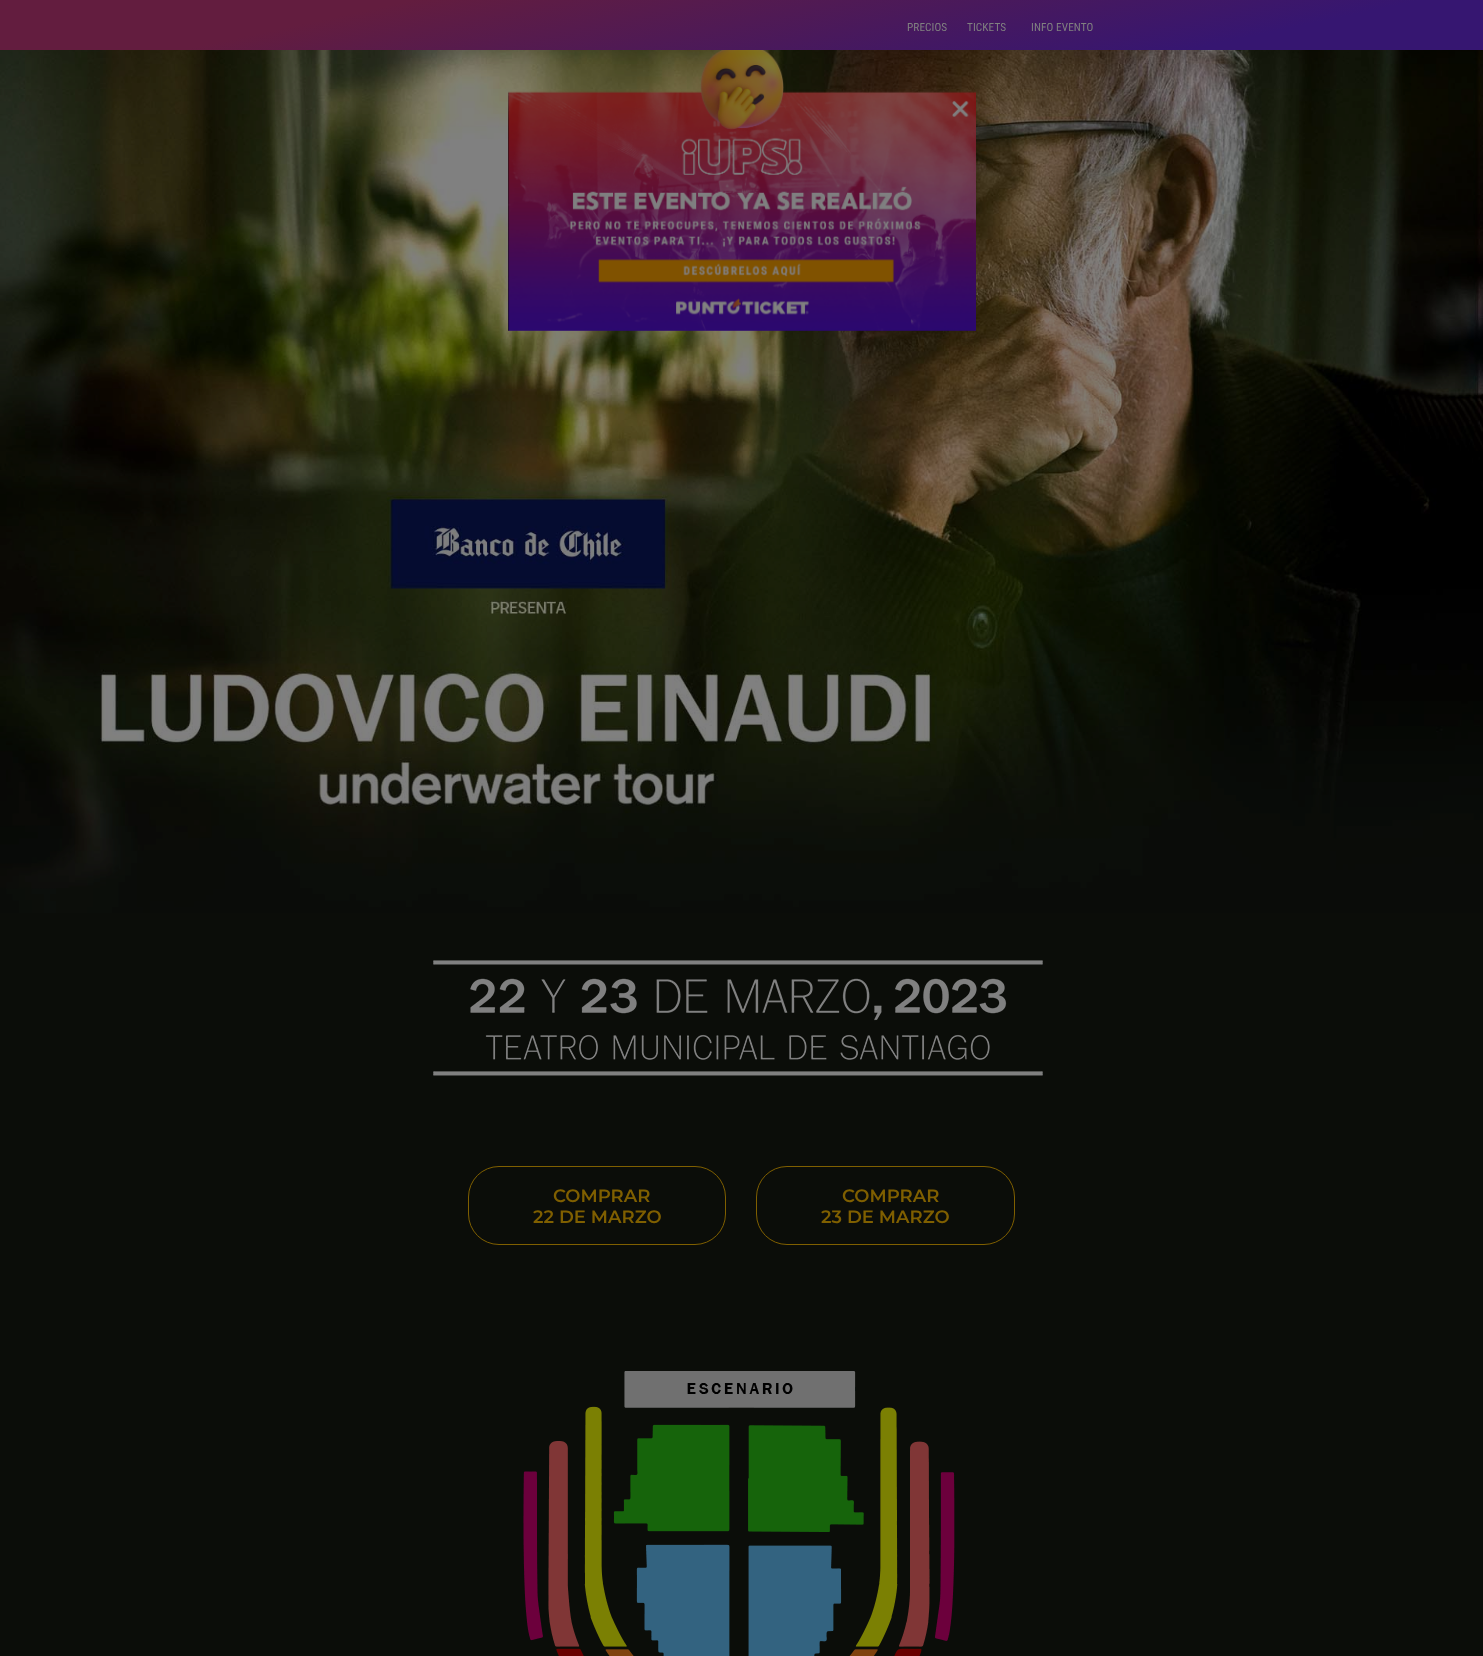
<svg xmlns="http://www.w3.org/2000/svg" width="1483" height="1656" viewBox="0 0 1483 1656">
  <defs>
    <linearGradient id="g1" gradientUnits="userSpaceOnUse" x1="704" y1="-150" x2="779" y2="200"><stop offset="0.24" stop-color="rgb(99,29,63)"/><stop offset="0.83" stop-color="rgb(54,22,113)"/></linearGradient>
  </defs>
  <rect width="100%" height="100%" fill="rgb(11,13,9)"/>
  <rect x="0" y="0" width="1483" height="50" fill="url(#g1)"/>
  <g font-family="Roboto Condensed" font-size="11.25" letter-spacing="0.1" fill="rgb(128,128,128)">
    <text x="907" y="31">PRECIOS</text>
    <text x="967" y="31">TICKETS</text>
    <text x="1031" y="31">INFO EVENTO</text>
  </g>
  <image x="0" y="50" width="1483" height="863" href="pic2.png"/>
  <image x="508" y="50" width="468" height="281" href="pic1.png"/>
  <image x="433" y="960" width="610" height="116" href="pic3.png"/>
  <rect x="468.5" y="1166.5" width="257" height="78" rx="30.5" fill="none" stroke="rgb(127,95,0)"/>
  <g font-family="Montserrat" font-size="18" font-weight="600" fill="rgb(127,95,0)">
    <text x="553" y="1202">COMPRAR</text>
    <text x="533" y="1223">22 DE MARZO</text>
  </g>
  <rect x="756.5" y="1166.5" width="258" height="78" rx="30.5" fill="none" stroke="rgb(127,95,0)"/>
  <g font-family="Montserrat" font-size="18" font-weight="600" fill="rgb(127,95,0)">
    <text x="842" y="1202">COMPRAR</text>
    <text x="821" y="1223">23 DE MARZO</text>
  </g>
  <image x="523" y="1371" width="432" height="285" href="pic4.png"/>
</svg>
